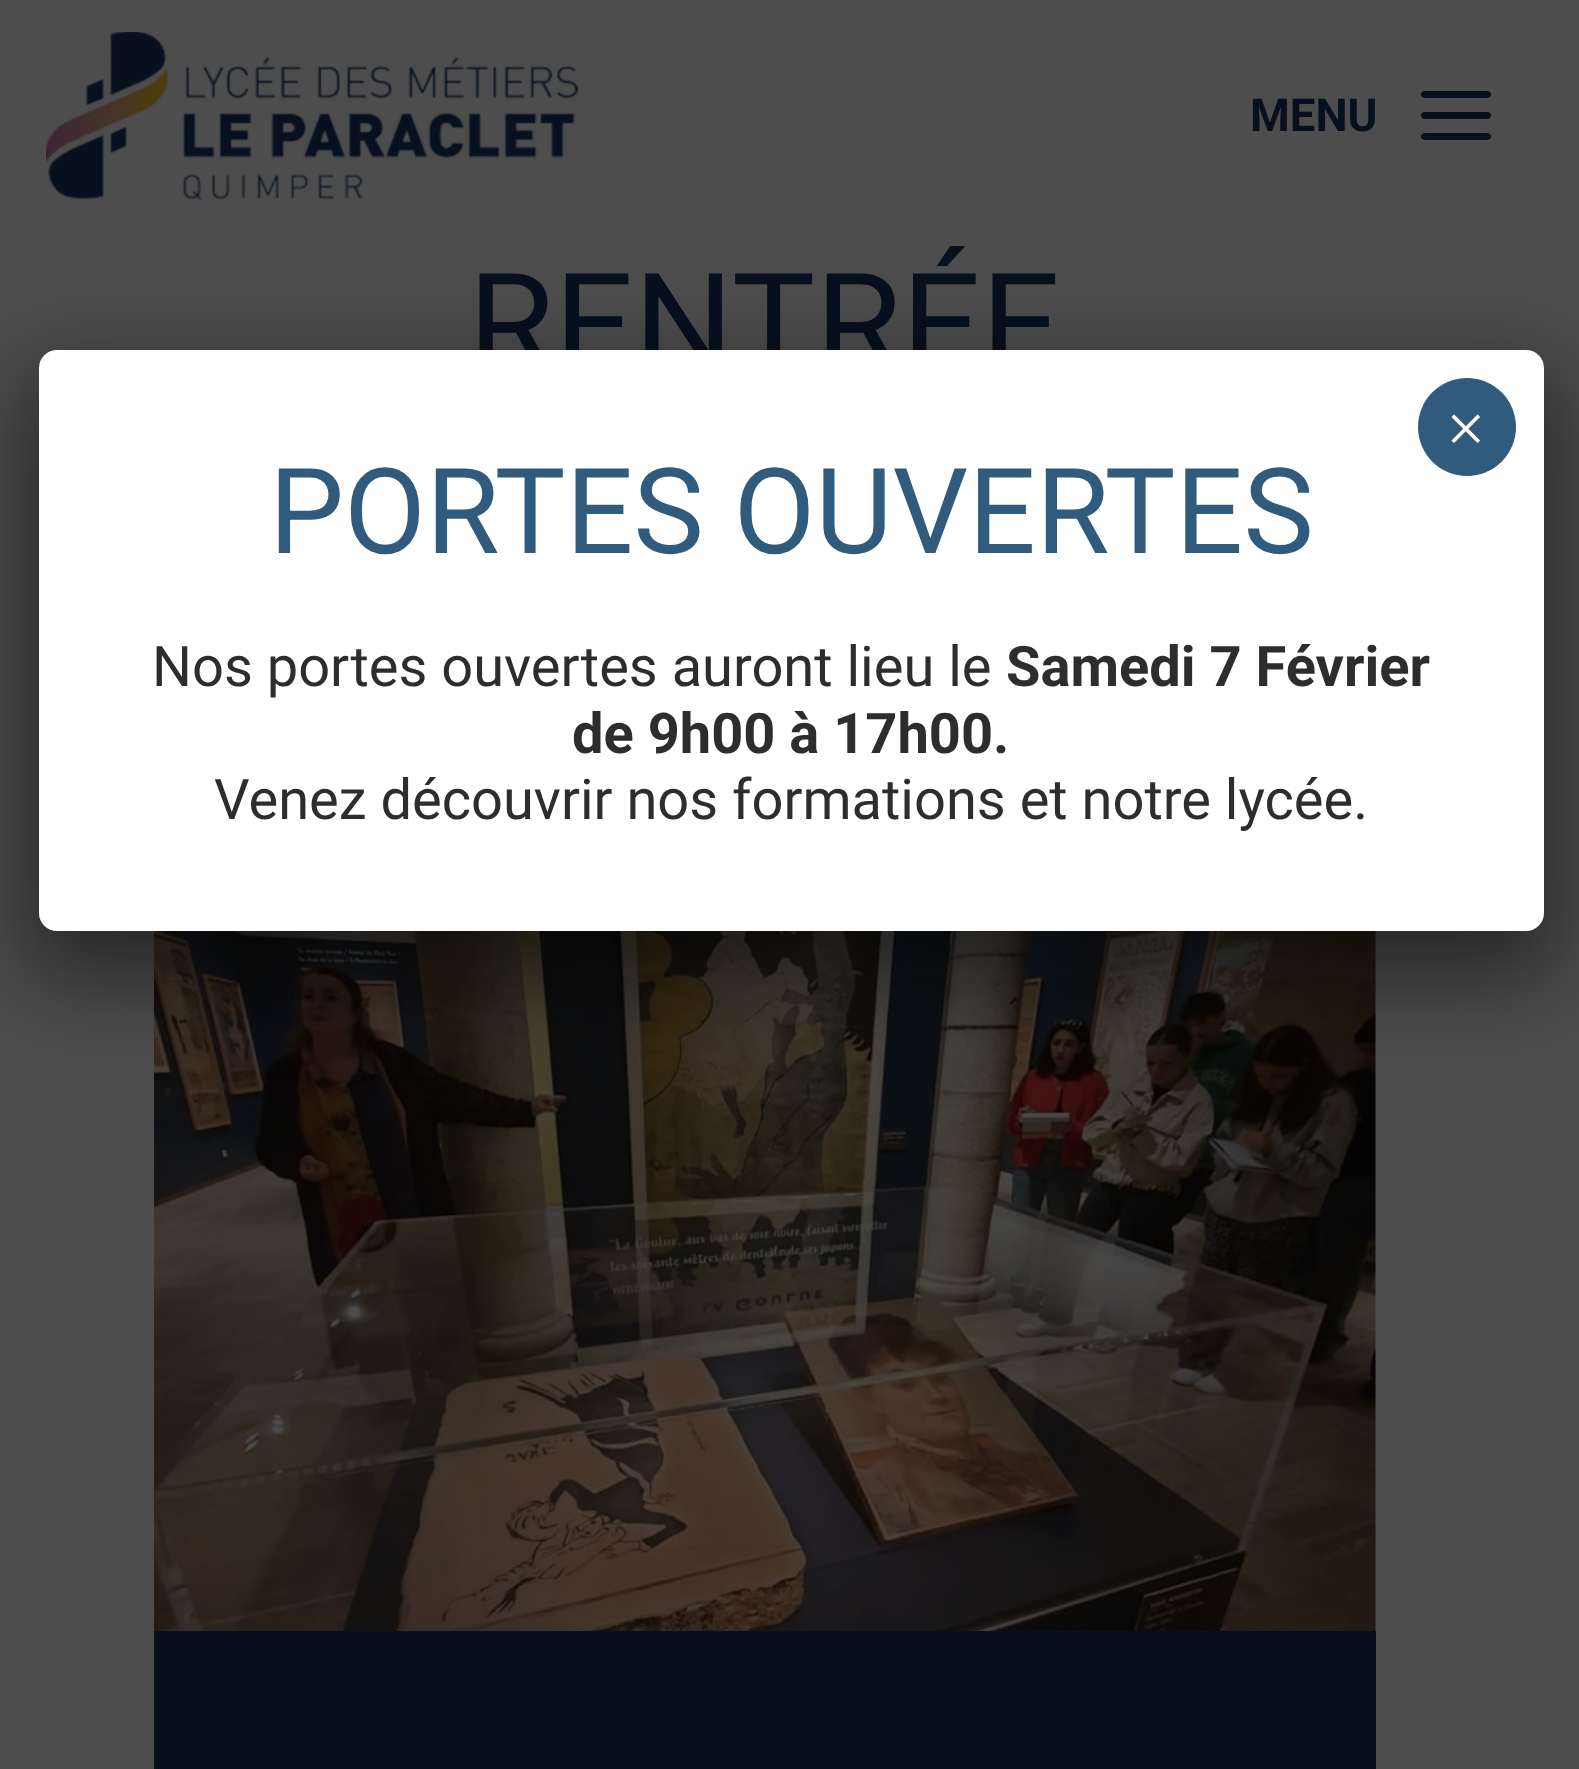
<svg xmlns="http://www.w3.org/2000/svg" width="1579" height="1769" viewBox="0 0 1579 1769">
  <rect width="100%" height="100%" fill="rgb(77,77,77)"/>
  <image x="46" y="32" width="532" height="168" href="pic1.png"/>
  <text x="1250" y="131" font-family="Roboto" font-size="45.5" font-weight="bold" fill="rgb(6,16,31)">MENU</text>
  <image x="1421" y="91" width="70" height="49" href="pic2.png"/>
  <text x="468" y="373" font-family="Roboto" font-size="140" fill="rgb(6,16,31)">RENTRÉE</text>
  <image x="154" y="931" width="1222" height="700" href="pic3.png"/>
  <rect x="154" y="1631" width="1222" height="138" fill="rgb(6,16,31)"/>
  <rect x="25" y="371" width="1533" height="609" rx="32" fill="rgba(2,2,2,0.5)" filter="blur(44px)"/>
  <rect x="39" y="350" width="1505" height="581" rx="18" fill="rgb(255,255,255)"/>
  <circle cx="1467" cy="427" r="49" fill="rgb(49,91,124)"/>
  <text x="1446" y="452" font-family="Liberation Serif" font-size="70" fill="rgb(255,255,255)">×</text>
  <text x="269" y="553" font-family="Roboto" font-size="119" fill="rgb(49,91,124)">PORTES OUVERTES</text>
  <text x="152" y="686" font-family="Roboto" font-size="56" fill="rgb(45,45,45)">Nos portes ouvertes auront lieu le</text>
  <g font-family="Roboto" font-size="56" font-weight="bold" fill="rgb(45,45,45)">
    <text x="1006" y="686">Samedi 7 Février</text>
    <text x="572" y="753">de 9h00 à 17h00.</text>
  </g>
  <text x="214" y="819" font-family="Roboto" font-size="56" fill="rgb(45,45,45)">Venez découvrir nos formations et notre lycée.</text>
</svg>
